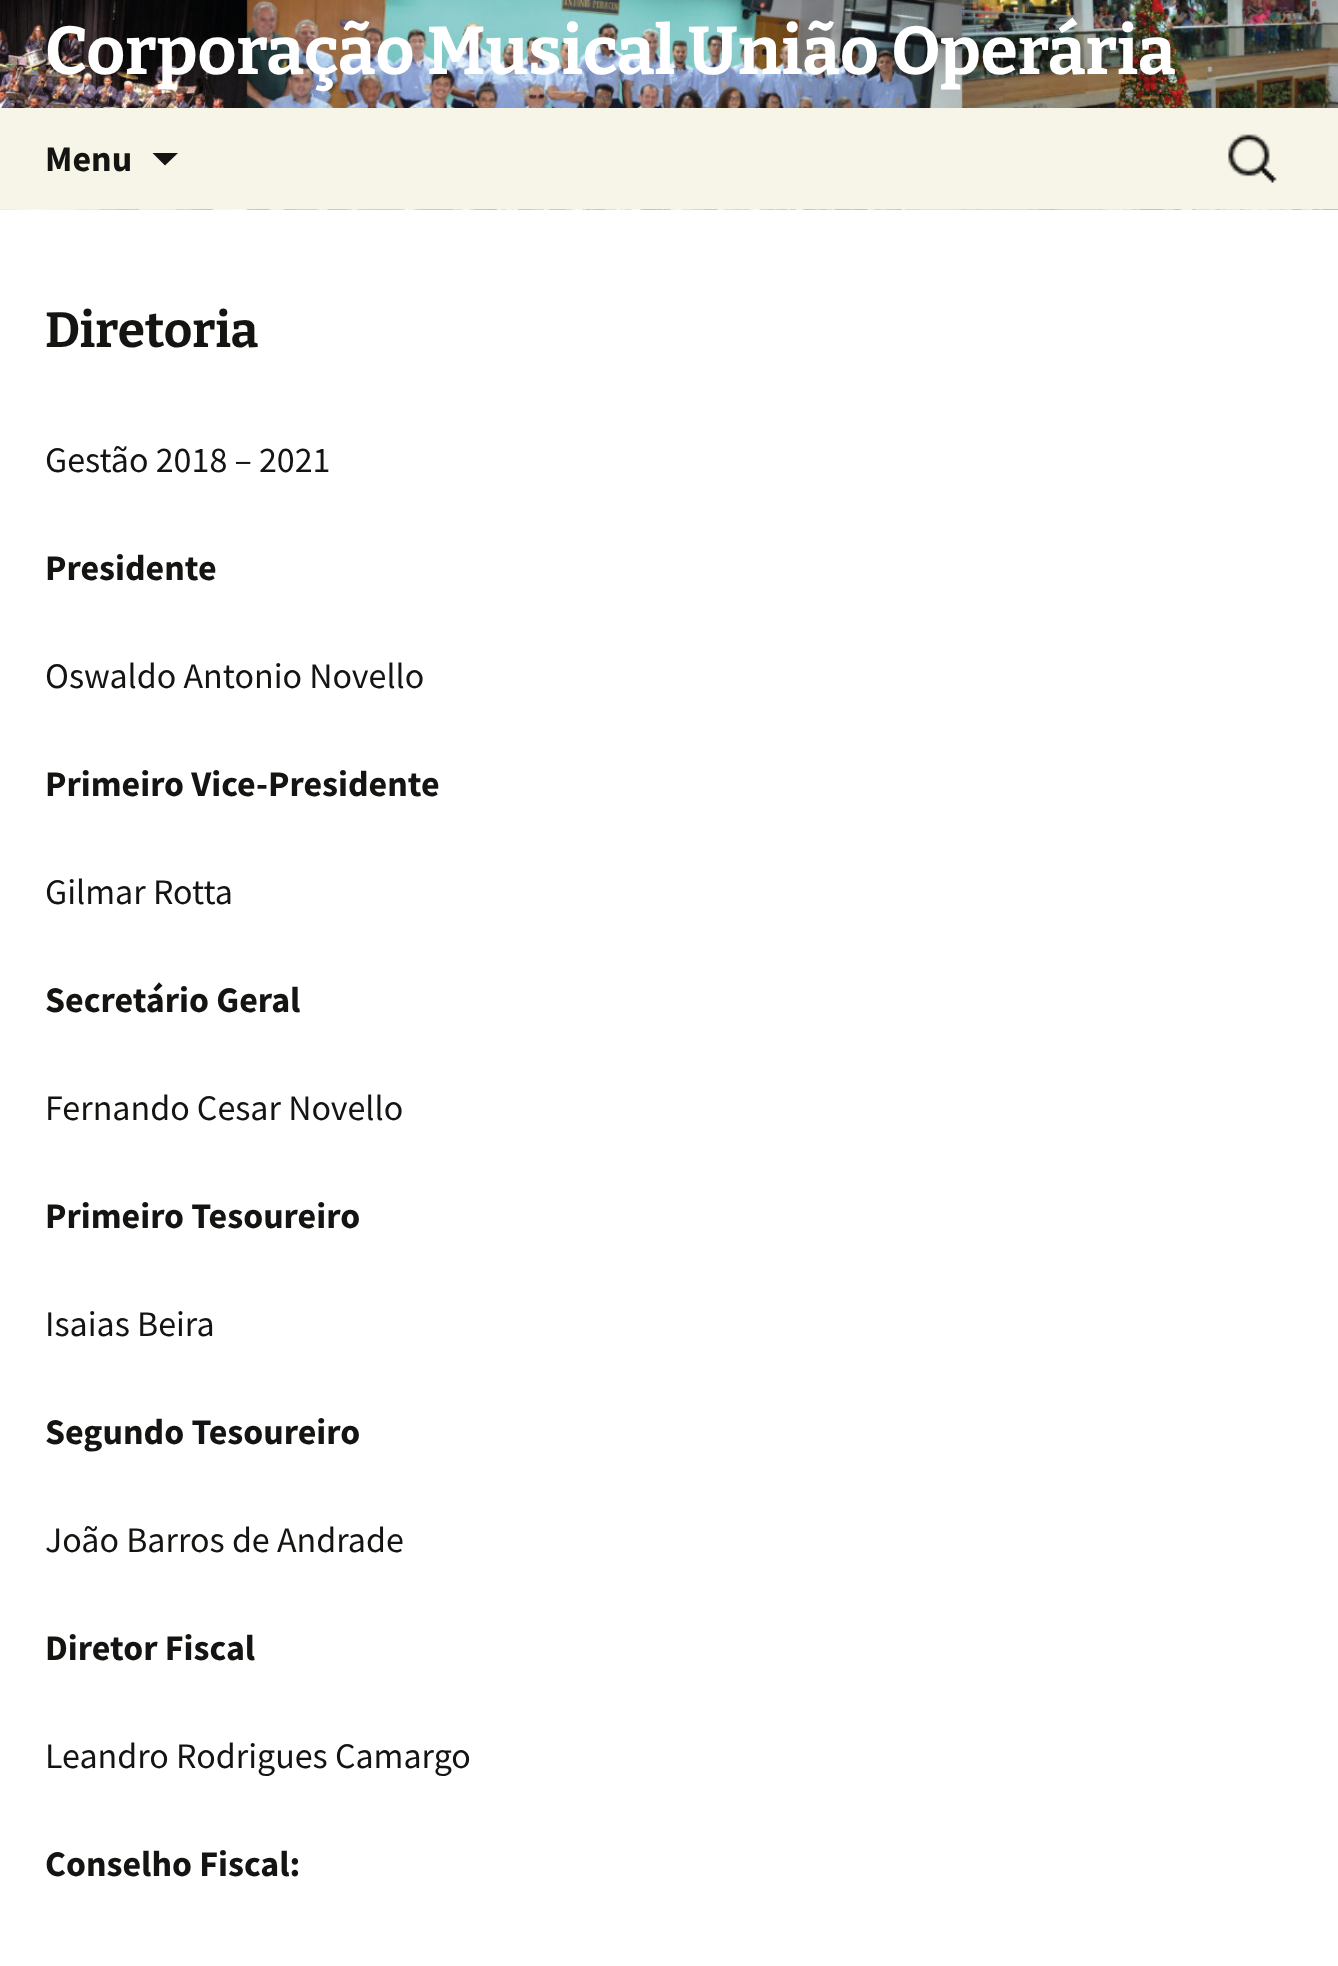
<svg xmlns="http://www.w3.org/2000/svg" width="1338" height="1966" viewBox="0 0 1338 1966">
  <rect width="100%" height="100%" fill="rgb(255,255,255)"/>
  <image x="0" y="0" width="1338" height="210" href="pic1.png"/>
  <text x="45" y="74" font-family="Bitter" font-size="67.5" font-weight="bold" fill="rgb(255,255,255)">Corporação Musical União Operária</text>
  <rect x="0" y="108" width="1338" height="101" fill="rgb(247,245,231)"/>
  <text x="45" y="171" font-family="Source Sans Pro" font-size="36" font-weight="bold" fill="rgb(20,20,18)">Menu</text>
  <path d="M152.5 153L165 165.5L178 153Z" fill="rgb(20,20,18)"/>
  <image x="1228" y="134" width="49" height="49" href="pic2.png"/>
  <text x="45" y="347" font-family="Bitter" font-size="49.5" font-weight="bold" fill="rgb(20,20,18)">Diretoria</text>
  <text x="45" y="472" font-family="Source Sans Pro" font-size="36" fill="rgb(20,20,18)">Gestão 2018 – 2021</text>
  <text x="45" y="580" font-family="Source Sans Pro" font-size="36" font-weight="bold" fill="rgb(20,20,18)">Presidente</text>
  <text x="45" y="688" font-family="Source Sans Pro" font-size="36" fill="rgb(20,20,18)">Oswaldo Antonio Novello</text>
  <text x="45" y="796" font-family="Source Sans Pro" font-size="36" font-weight="bold" fill="rgb(20,20,18)">Primeiro Vice-Presidente</text>
  <text x="45" y="904" font-family="Source Sans Pro" font-size="36" fill="rgb(20,20,18)">Gilmar Rotta</text>
  <text x="45" y="1012" font-family="Source Sans Pro" font-size="36" font-weight="bold" fill="rgb(20,20,18)">Secretário Geral</text>
  <text x="45" y="1120" font-family="Source Sans Pro" font-size="36" fill="rgb(20,20,18)">Fernando Cesar Novello</text>
  <text x="45" y="1228" font-family="Source Sans Pro" font-size="36" font-weight="bold" fill="rgb(20,20,18)">Primeiro Tesoureiro</text>
  <text x="45" y="1336" font-family="Source Sans Pro" font-size="36" fill="rgb(20,20,18)">Isaias Beira</text>
  <text x="45" y="1444" font-family="Source Sans Pro" font-size="36" font-weight="bold" fill="rgb(20,20,18)">Segundo Tesoureiro</text>
  <text x="45" y="1552" font-family="Source Sans Pro" font-size="36" fill="rgb(20,20,18)">João Barros de Andrade</text>
  <text x="45" y="1660" font-family="Source Sans Pro" font-size="36" font-weight="bold" fill="rgb(20,20,18)">Diretor Fiscal</text>
  <text x="45" y="1768" font-family="Source Sans Pro" font-size="36" fill="rgb(20,20,18)">Leandro Rodrigues Camargo</text>
  <text x="45" y="1876" font-family="Source Sans Pro" font-size="36" font-weight="bold" fill="rgb(20,20,18)">Conselho Fiscal:</text>
</svg>
